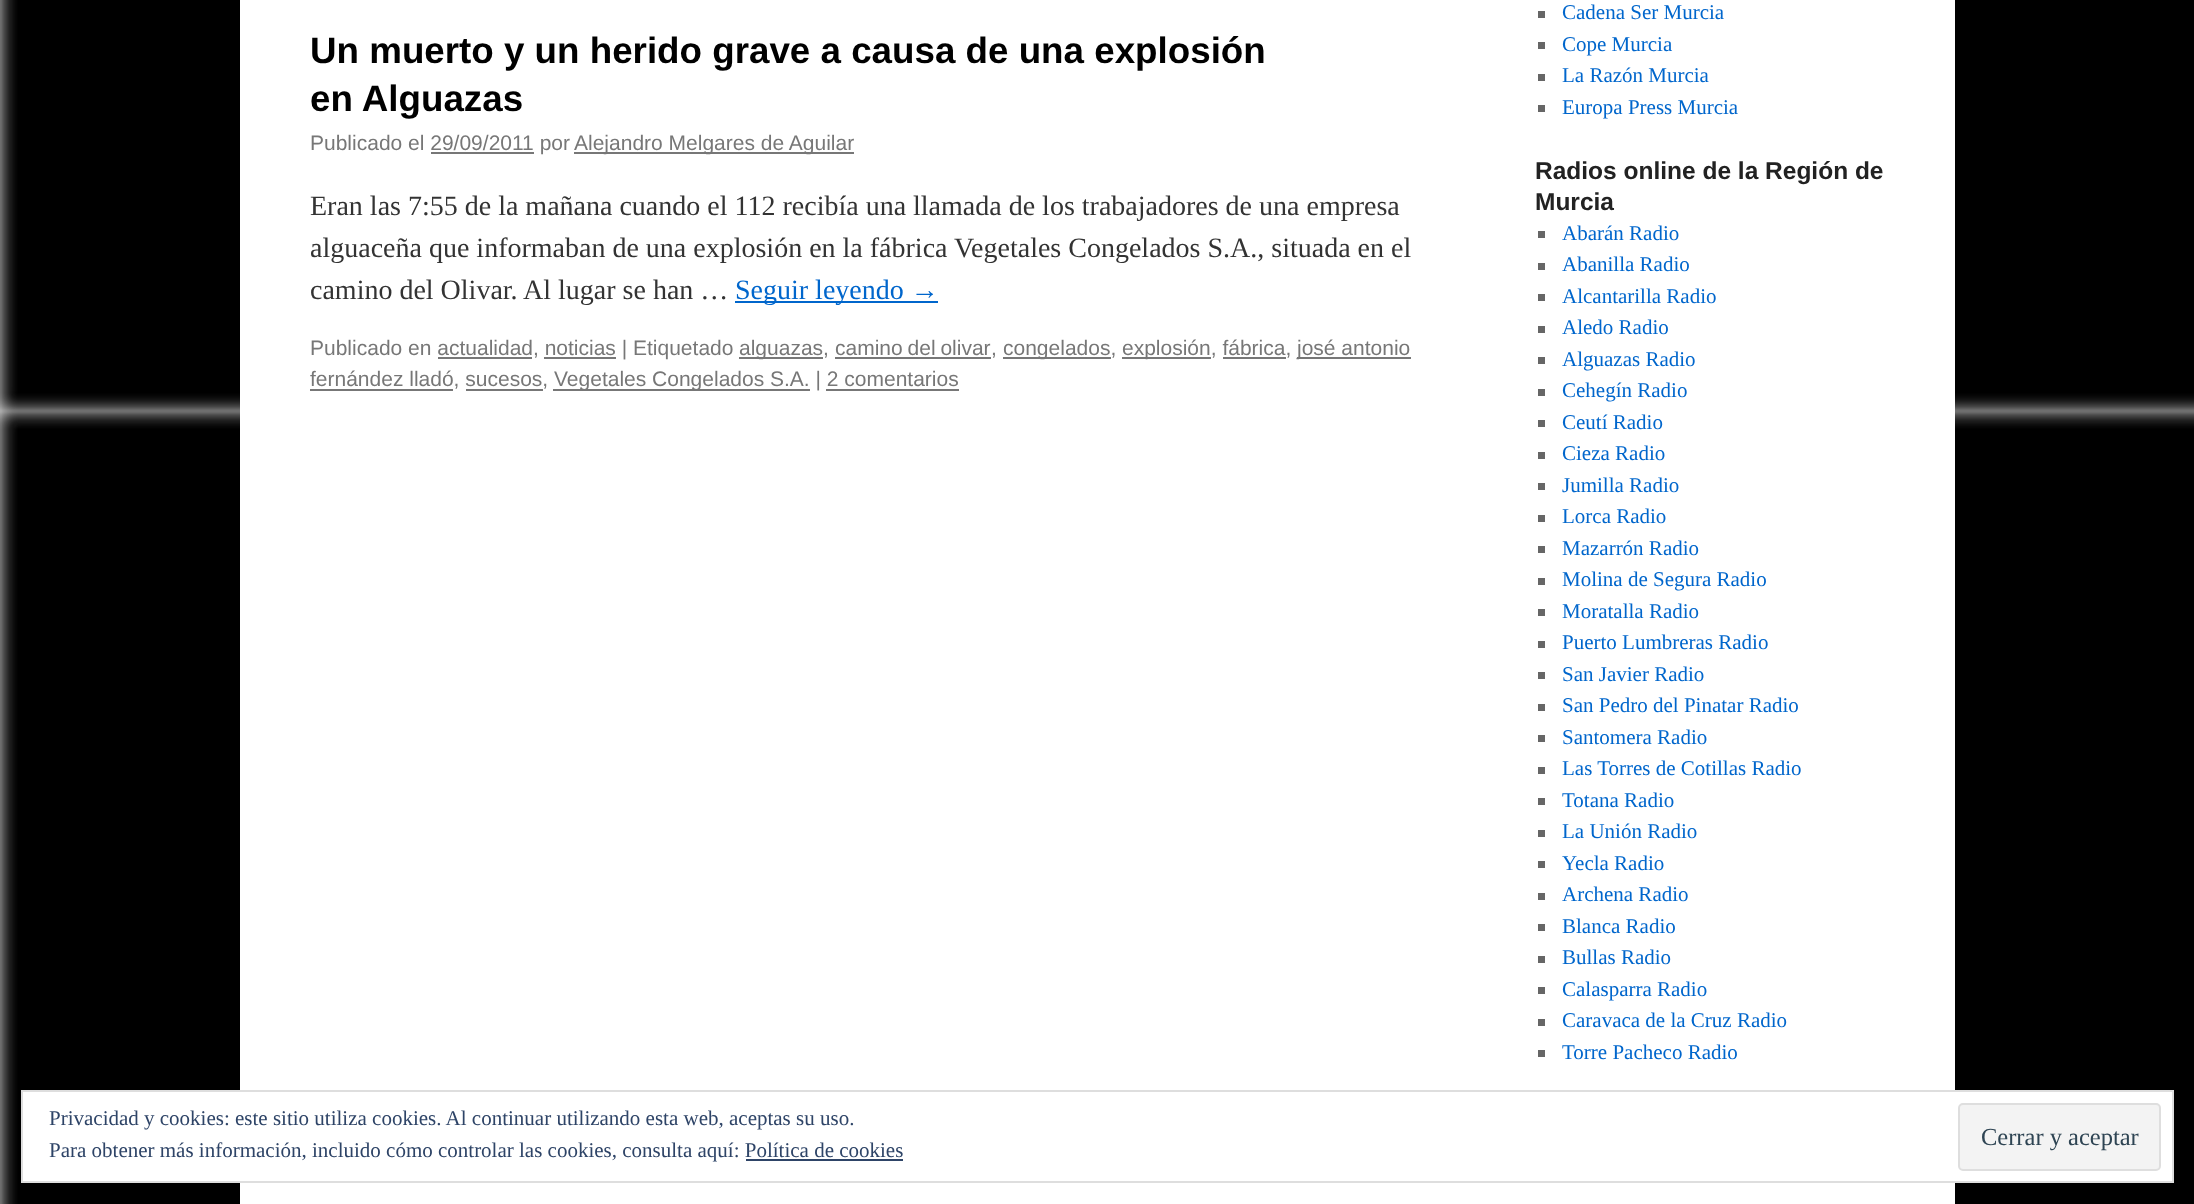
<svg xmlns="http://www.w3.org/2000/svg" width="2194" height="1204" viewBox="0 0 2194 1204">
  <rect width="100%" height="100%" fill="rgb(241,241,241)"/>
  <image x="0" y="0" width="2194" height="1204" href="pic1.png"/>
  <rect x="240" y="0" width="1715" height="1204" fill="rgb(255,255,255)"/>
  <g font-family="Liberation Sans" font-size="36.75" font-weight="bold" fill="rgb(0,0,0)">
    <text>
      <tspan x="310" y="63">Un muerto y un herido grave a causa de una explosión</tspan>
      <tspan x="310" y="111">en Alguazas</tspan>
    </text>
  </g>
  <text x="310" y="150" font-family="Liberation Sans" font-size="21" fill="rgb(119,119,119)">Publicado el 29/09/2011 por</text>
  <rect x="574" y="152" width="280" height="2" fill="rgb(119,119,119)"/>
  <text x="574" y="150" font-family="Liberation Sans" font-size="21" fill="rgb(119,119,119)">Alejandro Melgares de Aguilar</text>
  <rect x="431" y="152" width="103" height="2" fill="rgb(119,119,119)"/>
  <g font-family="Liberation Serif" font-size="28" fill="rgb(51,51,51)">
    <text>
      <tspan x="310" y="215">Eran las 7:55 de la mañana cuando el 112 recibía una llamada de los trabajadores de una empresa</tspan>
      <tspan x="310" y="257">alguaceña que informaban de una explosión en la fábrica Vegetales Congelados S.A., situada en el</tspan>
      <tspan x="310" y="299">camino del Olivar. Al lugar se han …</tspan>
    </text>
  </g>
  <rect x="735" y="301" width="203" height="2" fill="rgb(0,102,204)"/>
  <text x="735" y="299" font-family="Liberation Serif" font-size="28" fill="rgb(0,102,204)">Seguir leyendo →</text>
  <text x="310" y="355" font-family="Liberation Sans" font-size="21" fill="rgb(119,119,119)">Publicado en actualidad, noticias | Etiquetado</text>
  <rect x="438" y="357" width="94" height="2" fill="rgb(119,119,119)"/>
  <rect x="544" y="357" width="72" height="2" fill="rgb(119,119,119)"/>
  <rect x="739" y="357" width="84" height="2" fill="rgb(119,119,119)"/>
  <g font-family="Liberation Sans" font-size="21" fill="rgb(119,119,119)">
    <text x="739" y="355">alguazas,</text>
    <text x="835" y="355" word-spacing="-1">camino del olivar</text>
    <text x="991" y="355">,</text>
  </g>
  <rect x="835" y="357" width="156" height="2" fill="rgb(119,119,119)"/>
  <rect x="1003" y="357" width="108" height="2" fill="rgb(119,119,119)"/>
  <text x="1003" y="355" font-family="Liberation Sans" font-size="21" fill="rgb(119,119,119)">congelados,</text>
  <rect x="1122" y="357" width="89" height="2" fill="rgb(119,119,119)"/>
  <text x="1122" y="355" font-family="Liberation Sans" font-size="21" fill="rgb(119,119,119)">explosión, fábrica,</text>
  <rect x="1223" y="357" width="63" height="2" fill="rgb(119,119,119)"/>
  <rect x="1297" y="357" width="114" height="2" fill="rgb(119,119,119)"/>
  <g font-family="Liberation Sans" font-size="21" fill="rgb(119,119,119)">
    <text x="1297" y="355">josé antonio</text>
    <text x="310" y="386">fernández lladó, sucesos,</text>
  </g>
  <rect x="310" y="389" width="143" height="2" fill="rgb(119,119,119)"/>
  <rect x="466" y="389" width="77" height="2" fill="rgb(119,119,119)"/>
  <rect x="553" y="389" width="257" height="2" fill="rgb(119,119,119)"/>
  <text x="554" y="386" font-family="Liberation Sans" font-size="21" fill="rgb(119,119,119)">Vegetales Congelados S.A. | 2 comentarios</text>
  <rect x="826" y="389" width="133" height="2" fill="rgb(119,119,119)"/>
  <rect x="1538" y="11" width="7" height="7" fill="rgb(102,102,102)"/>
  <text x="1562" y="19" font-family="Liberation Serif" font-size="21" fill="rgb(0,102,204)">Cadena Ser Murcia</text>
  <rect x="1538" y="42" width="7" height="7" fill="rgb(102,102,102)"/>
  <text x="1562" y="51" font-family="Liberation Serif" font-size="21" fill="rgb(0,102,204)">Cope Murcia</text>
  <rect x="1538" y="74" width="7" height="7" fill="rgb(102,102,102)"/>
  <text x="1562" y="82" font-family="Liberation Serif" font-size="21" fill="rgb(0,102,204)">La Razón Murcia</text>
  <rect x="1538" y="105" width="7" height="7" fill="rgb(102,102,102)"/>
  <text x="1562" y="114" font-family="Liberation Serif" font-size="21" fill="rgb(0,102,204)">Europa Press Murcia</text>
  <g font-family="Liberation Sans" font-size="24.5" font-weight="bold" fill="rgb(34,34,34)">
    <text>
      <tspan x="1535" y="179">Radios online de la Región de</tspan>
      <tspan x="1535" y="210">Murcia</tspan>
    </text>
  </g>
  <rect x="1538" y="231" width="7" height="7" fill="rgb(102,102,102)"/>
  <text x="1562" y="240" font-family="Liberation Serif" font-size="21" fill="rgb(0,102,204)">Abarán Radio</text>
  <rect x="1538" y="263" width="7" height="7" fill="rgb(102,102,102)"/>
  <text x="1562" y="271" font-family="Liberation Serif" font-size="21" fill="rgb(0,102,204)">Abanilla Radio</text>
  <rect x="1538" y="294" width="7" height="7" fill="rgb(102,102,102)"/>
  <text x="1562" y="303" font-family="Liberation Serif" font-size="21" fill="rgb(0,102,204)">Alcantarilla Radio</text>
  <rect x="1538" y="326" width="7" height="7" fill="rgb(102,102,102)"/>
  <text x="1562" y="334" font-family="Liberation Serif" font-size="21" fill="rgb(0,102,204)">Aledo Radio</text>
  <rect x="1538" y="357" width="7" height="7" fill="rgb(102,102,102)"/>
  <text x="1562" y="366" font-family="Liberation Serif" font-size="21" fill="rgb(0,102,204)">Alguazas Radio</text>
  <rect x="1538" y="389" width="7" height="7" fill="rgb(102,102,102)"/>
  <text x="1562" y="397" font-family="Liberation Serif" font-size="21" fill="rgb(0,102,204)">Cehegín Radio</text>
  <rect x="1538" y="420" width="7" height="7" fill="rgb(102,102,102)"/>
  <text x="1562" y="429" font-family="Liberation Serif" font-size="21" fill="rgb(0,102,204)">Ceutí Radio</text>
  <rect x="1538" y="452" width="7" height="7" fill="rgb(102,102,102)"/>
  <text x="1562" y="460" font-family="Liberation Serif" font-size="21" fill="rgb(0,102,204)">Cieza Radio</text>
  <rect x="1538" y="483" width="7" height="7" fill="rgb(102,102,102)"/>
  <text x="1562" y="492" font-family="Liberation Serif" font-size="21" fill="rgb(0,102,204)">Jumilla Radio</text>
  <rect x="1538" y="515" width="7" height="7" fill="rgb(102,102,102)"/>
  <text x="1562" y="523" font-family="Liberation Serif" font-size="21" fill="rgb(0,102,204)">Lorca Radio</text>
  <rect x="1538" y="546" width="7" height="7" fill="rgb(102,102,102)"/>
  <text x="1562" y="555" font-family="Liberation Serif" font-size="21" fill="rgb(0,102,204)">Mazarrón Radio</text>
  <rect x="1538" y="578" width="7" height="7" fill="rgb(102,102,102)"/>
  <text x="1562" y="586" font-family="Liberation Serif" font-size="21" fill="rgb(0,102,204)">Molina de Segura Radio</text>
  <rect x="1538" y="609" width="7" height="7" fill="rgb(102,102,102)"/>
  <text x="1562" y="618" font-family="Liberation Serif" font-size="21" fill="rgb(0,102,204)">Moratalla Radio</text>
  <rect x="1538" y="641" width="7" height="7" fill="rgb(102,102,102)"/>
  <text x="1562" y="649" font-family="Liberation Serif" font-size="21" fill="rgb(0,102,204)">Puerto Lumbreras Radio</text>
  <rect x="1538" y="672" width="7" height="7" fill="rgb(102,102,102)"/>
  <text x="1562" y="681" font-family="Liberation Serif" font-size="21" fill="rgb(0,102,204)">San Javier Radio</text>
  <rect x="1538" y="704" width="7" height="7" fill="rgb(102,102,102)"/>
  <text x="1562" y="712" font-family="Liberation Serif" font-size="21" fill="rgb(0,102,204)">San Pedro del Pinatar Radio</text>
  <rect x="1538" y="735" width="7" height="7" fill="rgb(102,102,102)"/>
  <text x="1562" y="744" font-family="Liberation Serif" font-size="21" fill="rgb(0,102,204)">Santomera Radio</text>
  <rect x="1538" y="767" width="7" height="7" fill="rgb(102,102,102)"/>
  <text x="1562" y="775" font-family="Liberation Serif" font-size="21" fill="rgb(0,102,204)">Las Torres de Cotillas Radio</text>
  <rect x="1538" y="798" width="7" height="7" fill="rgb(102,102,102)"/>
  <text x="1562" y="807" font-family="Liberation Serif" font-size="21" fill="rgb(0,102,204)">Totana Radio</text>
  <rect x="1538" y="830" width="7" height="7" fill="rgb(102,102,102)"/>
  <text x="1562" y="838" font-family="Liberation Serif" font-size="21" fill="rgb(0,102,204)">La Unión Radio</text>
  <rect x="1538" y="861" width="7" height="7" fill="rgb(102,102,102)"/>
  <text x="1562" y="870" font-family="Liberation Serif" font-size="21" fill="rgb(0,102,204)">Yecla Radio</text>
  <rect x="1538" y="893" width="7" height="7" fill="rgb(102,102,102)"/>
  <text x="1562" y="901" font-family="Liberation Serif" font-size="21" fill="rgb(0,102,204)">Archena Radio</text>
  <rect x="1538" y="924" width="7" height="7" fill="rgb(102,102,102)"/>
  <text x="1562" y="933" font-family="Liberation Serif" font-size="21" fill="rgb(0,102,204)">Blanca Radio</text>
  <rect x="1538" y="956" width="7" height="7" fill="rgb(102,102,102)"/>
  <text x="1562" y="964" font-family="Liberation Serif" font-size="21" fill="rgb(0,102,204)">Bullas Radio</text>
  <rect x="1538" y="987" width="7" height="7" fill="rgb(102,102,102)"/>
  <text x="1562" y="996" font-family="Liberation Serif" font-size="21" fill="rgb(0,102,204)">Calasparra Radio</text>
  <rect x="1538" y="1019" width="7" height="7" fill="rgb(102,102,102)"/>
  <text x="1562" y="1027" font-family="Liberation Serif" font-size="21" fill="rgb(0,102,204)">Caravaca de la Cruz Radio</text>
  <rect x="1538" y="1050" width="7" height="7" fill="rgb(102,102,102)"/>
  <text x="1562" y="1059" font-family="Liberation Serif" font-size="21" fill="rgb(0,102,204)">Torre Pacheco Radio</text>
  <rect x="22" y="1091" width="2151" height="91" fill="rgb(255,255,255)" stroke="rgb(222,222,222)" stroke-width="2"/>
  <g font-family="Liberation Serif" font-size="21" fill="rgb(46,68,103)">
    <text>
      <tspan x="49" y="1125">Privacidad y cookies: este sitio utiliza cookies. Al continuar utilizando esta web, aceptas su uso.</tspan>
      <tspan x="49" y="1157">Para obtener más información, incluido cómo controlar las cookies, consulta aquí: Política de cookies</tspan>
    </text>
  </g>
  <rect x="1959" y="1104" width="201" height="66" rx="4" fill="rgb(243,243,243)" stroke="rgb(222,222,222)" stroke-width="2"/>
  <text x="1981" y="1145" font-family="Liberation Serif" font-size="24.5" fill="rgb(46,68,83)">Cerrar y aceptar</text>
  <rect x="746" y="1159" width="157" height="2" fill="rgb(46,68,103)"/>
</svg>
